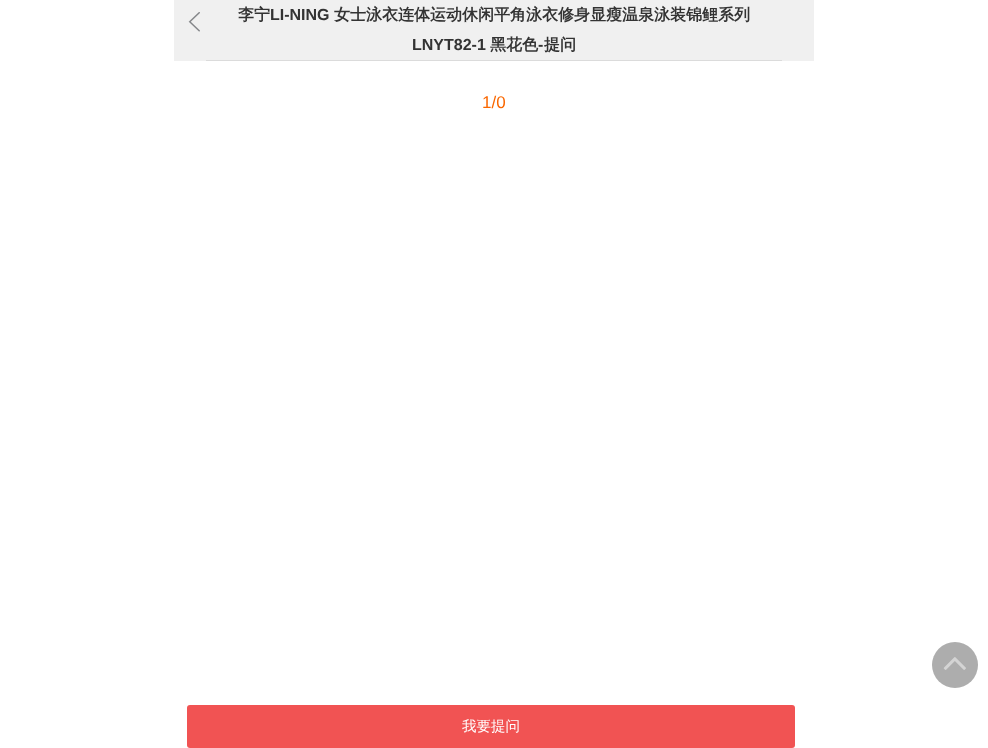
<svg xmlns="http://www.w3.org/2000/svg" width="988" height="748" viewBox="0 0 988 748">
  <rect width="100%" height="100%" fill="rgb(255,255,255)"/>
  <rect x="174" y="0" width="640" height="61" fill="rgb(240,240,240)"/>
  <image x="188" y="12" width="12" height="20" href="pic1.png"/>
  <rect x="206" y="60" width="576" height="1" fill="rgb(219,219,219)"/>
  <text x="238" y="20" font-family="WenQuanYi Zen Hei" font-size="16" font-weight="bold" fill="rgb(51,51,51)">李宁</text>
  <text x="270" y="20" font-family="Liberation Sans" font-size="16" font-weight="bold" fill="rgb(51,51,51)">LI-NING</text>
  <text x="334" y="20" font-family="WenQuanYi Zen Hei" font-size="16" font-weight="bold" fill="rgb(51,51,51)">女士泳衣连体运动休闲平角泳衣修身显瘦温泉泳装锦鲤系列</text>
  <text x="412" y="50" font-family="Liberation Sans" font-size="16" font-weight="bold" fill="rgb(51,51,51)">LNYT82-1</text>
  <text x="490" y="50" font-family="WenQuanYi Zen Hei" font-size="16" font-weight="bold" fill="rgb(51,51,51)">黑花色</text>
  <text x="538" y="50" font-family="Liberation Sans" font-size="16" font-weight="bold" fill="rgb(51,51,51)">-</text>
  <text x="544" y="50" font-family="WenQuanYi Zen Hei" font-size="16" font-weight="bold" fill="rgb(51,51,51)">提问</text>
  <text x="482" y="108" font-family="Liberation Sans" font-size="17" fill="rgb(250,103,0)">1/0</text>
  <rect x="187" y="705" width="608" height="43" rx="3" fill="rgb(241,83,83)"/>
  <text x="462" y="731" font-family="WenQuanYi Zen Hei" font-size="14.5" font-weight="500" fill="rgb(255,255,255)">我要提问</text>
  <circle cx="955" cy="665" r="23" fill="rgb(173,173,173)"/>
  <image x="943" y="657" width="23" height="13" href="pic2.png"/>
</svg>
